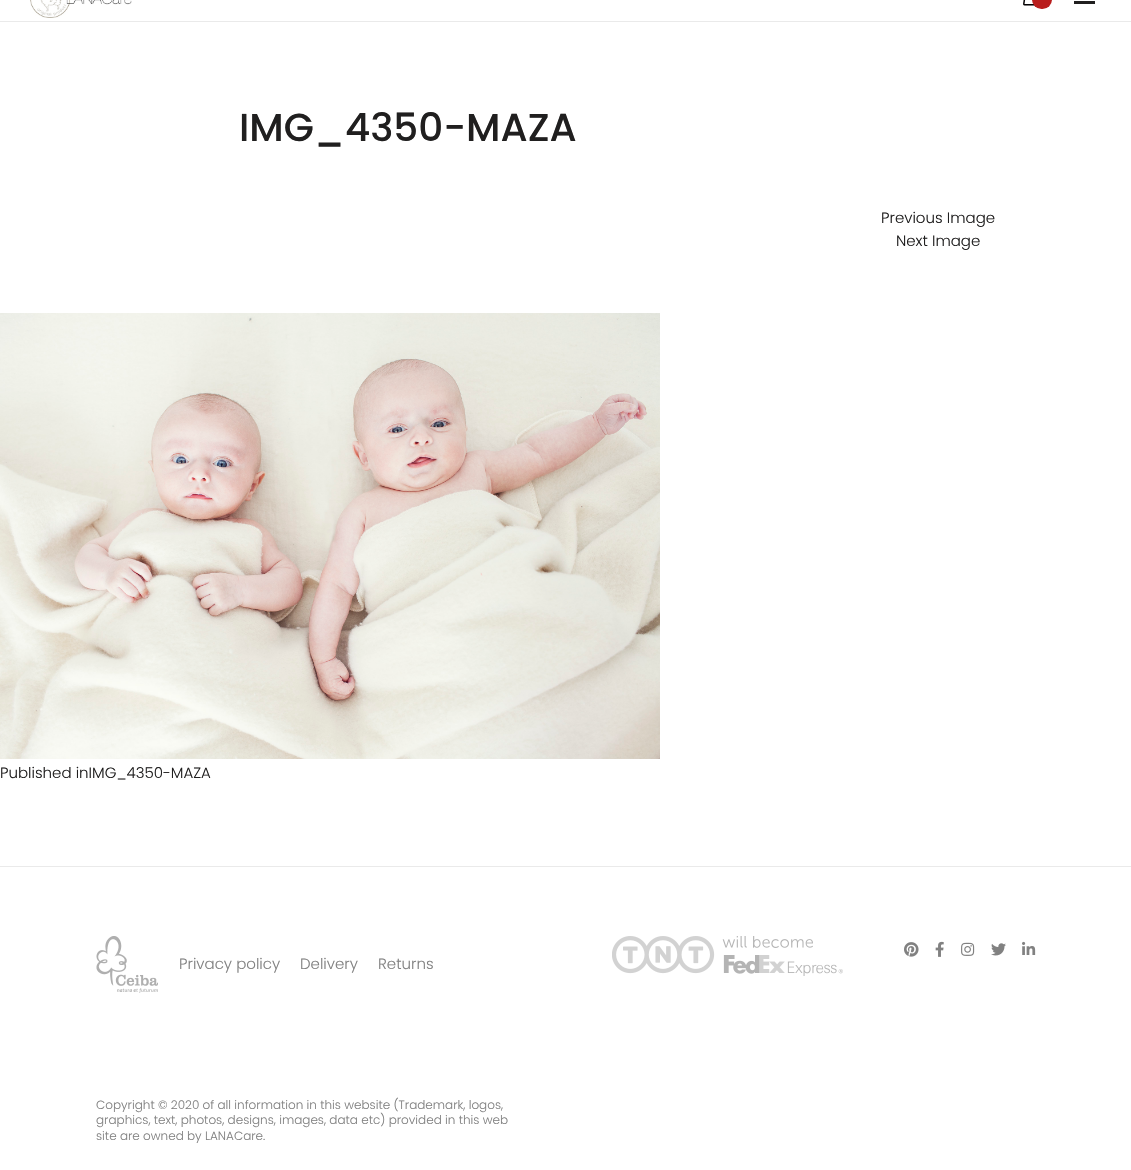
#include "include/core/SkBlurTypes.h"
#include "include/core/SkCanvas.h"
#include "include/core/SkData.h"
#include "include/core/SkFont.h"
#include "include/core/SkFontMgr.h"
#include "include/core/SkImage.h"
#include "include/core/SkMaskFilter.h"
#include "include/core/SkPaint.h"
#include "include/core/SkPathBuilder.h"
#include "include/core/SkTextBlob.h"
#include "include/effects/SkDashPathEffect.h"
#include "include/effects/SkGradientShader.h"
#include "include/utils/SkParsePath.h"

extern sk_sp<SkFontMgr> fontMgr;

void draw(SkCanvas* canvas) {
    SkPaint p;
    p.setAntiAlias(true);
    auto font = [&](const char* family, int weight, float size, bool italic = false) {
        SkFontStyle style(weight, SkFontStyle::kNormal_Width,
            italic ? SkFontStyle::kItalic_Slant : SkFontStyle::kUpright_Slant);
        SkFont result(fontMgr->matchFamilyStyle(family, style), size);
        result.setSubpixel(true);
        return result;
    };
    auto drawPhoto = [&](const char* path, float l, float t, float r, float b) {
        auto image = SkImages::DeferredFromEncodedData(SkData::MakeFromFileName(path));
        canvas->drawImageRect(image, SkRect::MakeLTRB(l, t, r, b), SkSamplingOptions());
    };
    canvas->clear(0xFFFFFFFF);
    p.setColor(0xFFEAEAEA);
    canvas->drawRect(SkRect::MakeLTRB(0, 21, 1131, 22), p);
    drawPhoto("media/1.png", 30, 0, 132, 18);
    drawPhoto("media/2.png", 1023, 0, 1035, 6);
    p.setColor(0xFFB91D1D);
    canvas->drawRoundRect(SkRect::MakeLTRB(1032, -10, 1052, 9), 10, 10, p);
    p.setColor(0xFF201F1F);
    canvas->drawRect(SkRect::MakeLTRB(1074, 1, 1095, 4), p);
    auto font1 = font("Poppins", 500, 39);
    canvas->drawString("IMG_4350-MAZA", 239, 141, font1, p);
    auto font2 = font("Poppins", 300, 15);
    canvas->drawString("Previous Image", 881, 223, font2, p);
    canvas->drawString("Next Image", 896, 246, font2, p);
    drawPhoto("media/3.png", 0, 313, 660, 759);
    canvas->drawString("Published inIMG_4350-MAZA", 0, 778, font2, p);
    p.setColor(0xFFEAEAEA);
    canvas->drawRect(SkRect::MakeLTRB(0, 866, 1131, 867), p);
    drawPhoto("media/4.png", 612, 936, 843, 976);
    drawPhoto("media/5.png", 904, 942, 919, 957);
    drawPhoto("media/6.png", 935, 941, 944, 957);
    drawPhoto("media/7.png", 961, 942, 975, 956);
    drawPhoto("media/8.png", 991, 943, 1006, 956);
    drawPhoto("media/9.png", 1022, 941, 1036, 955);
    drawPhoto("media/10.png", 96, 936, 158, 993);
    p.setColor(0xFF818181);
    {
        const struct { const char* s; float x, y; } items[] = {
            {"Privacy policy", 179, 969},
            {"Delivery", 300, 969},
            {"Returns", 378, 969},
        };
        for (auto [s, x, y] : items) {
            canvas->drawString(s, x, y, font2, p);
        }
    }
    auto font3 = font("Poppins", 300, 12);
    {
        const struct { const char* s; float x, y; } items[] = {
            {"Copyright © 2020 of all information in this website (Trademark, logos,", 96, 1109},
            {"graphics, text, photos, designs, images, data etc) provided in this web", 96, 1124},
            {"site are owned by LANACare.", 96, 1140},
        };
        for (auto [s, x, y] : items) {
            canvas->drawString(s, x, y, font3, p);
        }
    }
}
